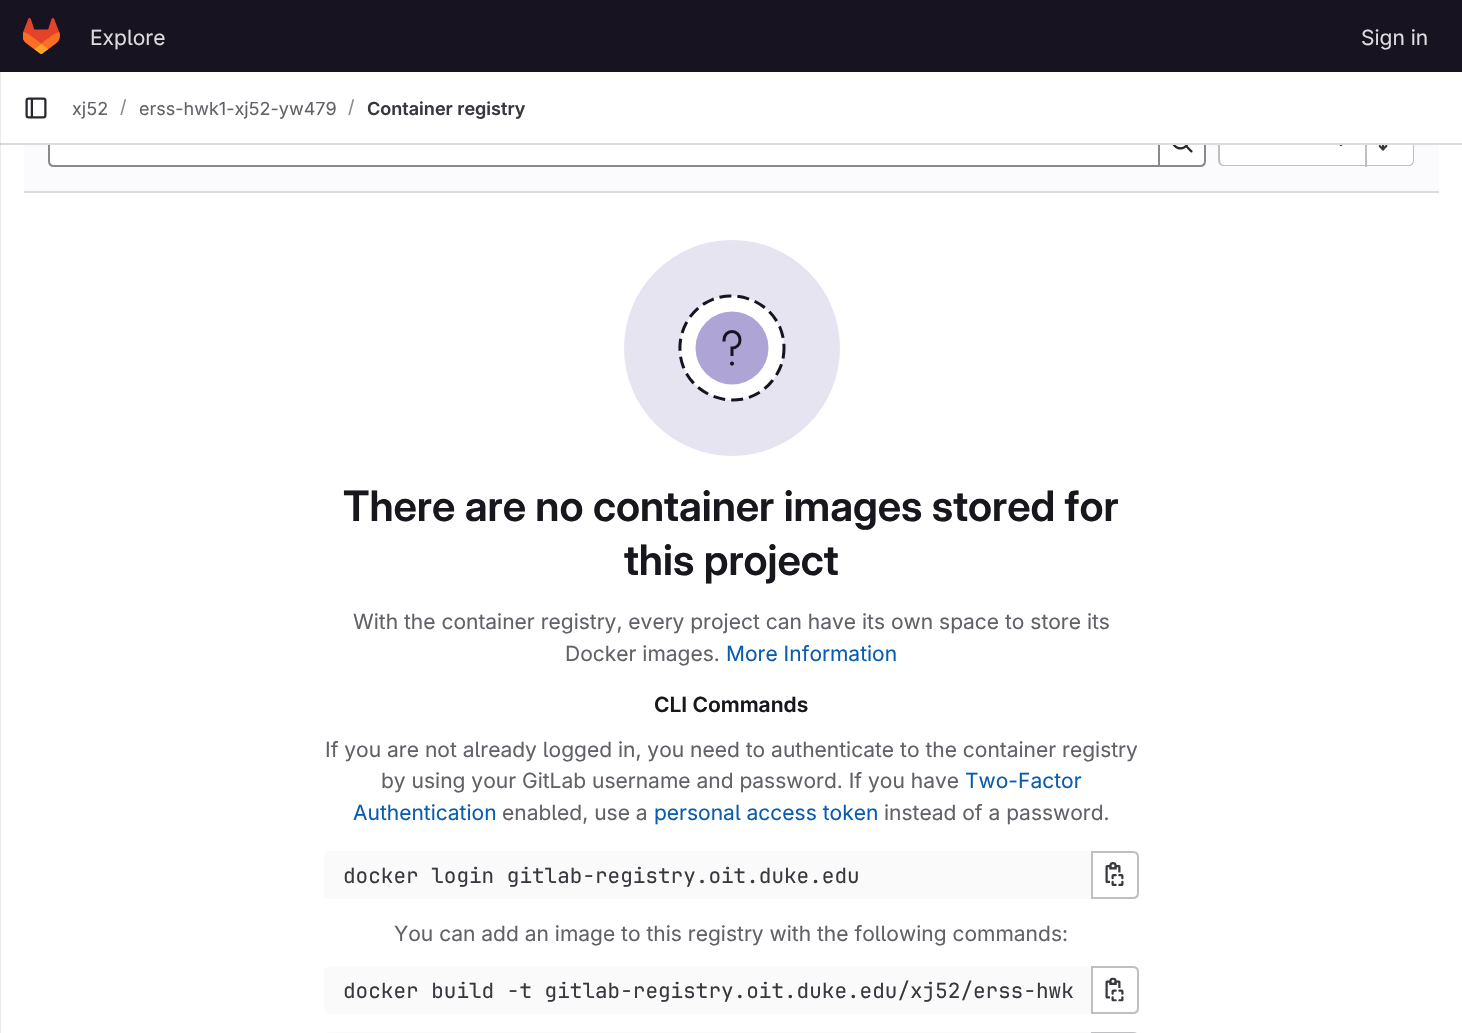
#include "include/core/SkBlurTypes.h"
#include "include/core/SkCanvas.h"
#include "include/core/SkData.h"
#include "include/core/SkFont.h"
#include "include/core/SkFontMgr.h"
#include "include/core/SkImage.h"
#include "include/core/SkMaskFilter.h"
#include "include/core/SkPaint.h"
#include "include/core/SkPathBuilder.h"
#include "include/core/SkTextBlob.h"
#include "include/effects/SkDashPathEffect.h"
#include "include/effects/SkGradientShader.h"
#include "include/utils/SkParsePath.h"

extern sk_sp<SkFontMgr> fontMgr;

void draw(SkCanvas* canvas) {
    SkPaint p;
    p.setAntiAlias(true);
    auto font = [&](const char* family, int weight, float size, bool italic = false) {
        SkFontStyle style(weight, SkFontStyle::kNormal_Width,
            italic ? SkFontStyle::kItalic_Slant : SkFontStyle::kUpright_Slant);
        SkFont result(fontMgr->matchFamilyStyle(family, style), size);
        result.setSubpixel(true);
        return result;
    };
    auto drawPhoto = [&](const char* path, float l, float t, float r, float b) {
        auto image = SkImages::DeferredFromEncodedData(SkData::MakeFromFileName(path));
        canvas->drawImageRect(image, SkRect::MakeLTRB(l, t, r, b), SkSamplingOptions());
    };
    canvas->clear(0xFFFFFFFF);
    p.setColor(0xFFEBEBEB);
    canvas->drawRect(SkRect::MakeLTRB(0, 145, 1, 1033), p);
    p.setColor(0xFF171321);
    canvas->drawRect(SkRect::MakeLTRB(0, 0, 1462, 72), p);
    drawPhoto("media/1.png", 23, 18, 60, 54);
    auto font1 = font("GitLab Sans", 400, 21);
    p.setColor(0xFFDCDCDE);
    canvas->drawString("Explore", 90, 45, font1, p);
    canvas->drawString("Sign in", 1361, 45, font1, p);
    p.setColor(0xFFFBFAFD);
    canvas->drawRect(SkRect::MakeLTRB(24, 145, 1439, 191), p);
    p.setColor(0xFFFFFFFF);
    canvas->drawPath(SkPathBuilder().moveTo(54, 120).lineTo(1159, 120).lineTo(1159, 166).lineTo(54, 166).cubicTo(51, 166, 49, 164, 49, 161).lineTo(49, 125).cubicTo(49, 122, 51, 120, 54, 120).close().detach(), p);
    p.setStyle(SkPaint::kStroke_Style);
    p.setStrokeWidth(2);
    p.setColor(0xFF89888D);
    canvas->drawPath(SkPathBuilder().moveTo(54, 120).lineTo(1159, 120).lineTo(1159, 166).lineTo(54, 166).cubicTo(51, 166, 49, 164, 49, 161).lineTo(49, 125).cubicTo(49, 122, 51, 120, 54, 120).close().detach(), p);
    p.setStyle(SkPaint::kFill_Style);
    p.setColor(0xFFFFFFFF);
    canvas->drawPath(SkPathBuilder().moveTo(1159, 120).lineTo(1200, 120).cubicTo(1203, 120, 1205, 122, 1205, 125).lineTo(1205, 161).cubicTo(1205, 164, 1203, 166, 1200, 166).lineTo(1159, 166).close().detach(), p);
    p.setStyle(SkPaint::kStroke_Style);
    p.setColor(0xFF89888D);
    canvas->drawPath(SkPathBuilder().moveTo(1159, 120).lineTo(1200, 120).cubicTo(1203, 120, 1205, 122, 1205, 125).lineTo(1205, 161).cubicTo(1205, 164, 1203, 166, 1200, 166).lineTo(1159, 166).close().detach(), p);
    p.setStyle(SkPaint::kFill_Style);
    p.setColor(0xFFFFFFFF);
    canvas->drawPath(SkPathBuilder().moveTo(1225, 120).lineTo(1365, 120).lineTo(1365, 165).lineTo(1225, 165).cubicTo(1222, 165, 1220, 163, 1220, 160).lineTo(1220, 125).cubicTo(1220, 122, 1222, 120, 1225, 120).close().detach(), p);
    p.setColor(0xFFBFBFC3);
    canvas->drawPath(SkPathBuilder(SkPathFillType::kEvenOdd).moveTo(1224, 118).lineTo(1365, 118).lineTo(1365, 166).lineTo(1224, 166).cubicTo(1221, 166, 1218, 164, 1218, 160).lineTo(1218, 124).cubicTo(1218, 121, 1221, 118, 1224, 118).close().moveTo(1224, 120).lineTo(1365, 120).lineTo(1365, 165).lineTo(1224, 165).cubicTo(1222, 165, 1220, 163, 1220, 160).lineTo(1220, 124).cubicTo(1220, 122, 1222, 120, 1224, 120).close().detach(), p);
    p.setColor(0xFFFFFFFF);
    canvas->drawPath(SkPathBuilder().moveTo(1367, 120).lineTo(1408, 120).cubicTo(1411, 120, 1413, 122, 1413, 125).lineTo(1413, 160).cubicTo(1413, 163, 1411, 165, 1408, 165).lineTo(1367, 165).close().detach(), p);
    p.setColor(0xFFBFBFC3);
    canvas->drawPath(SkPathBuilder(SkPathFillType::kEvenOdd).moveTo(1366, 118).lineTo(1408, 118).cubicTo(1412, 118, 1414, 121, 1414, 124).lineTo(1414, 160).cubicTo(1414, 164, 1412, 166, 1408, 166).lineTo(1366, 166).close().moveTo(1366, 120).lineTo(1408, 120).cubicTo(1411, 120, 1413, 122, 1413, 124).lineTo(1413, 160).cubicTo(1413, 163, 1411, 165, 1408, 165).lineTo(1366, 165).close().detach(), p);
    {
        const struct { float l, t, r, b; SkColor color; } items[] = {
            {48, 118, 1414, 143, 0xFFFFFFFF},
            {0, 72, 1, 144, 0xFFEBEBEB},
            {0, 143, 1462, 145, 0xFFDCDCDE},
            {0, 143, 1, 145, 0xFFCBCBCD},
        };
        for (auto [l, t, r, b, color] : items) {
            p.setColor(color);
            canvas->drawRect(SkRect::MakeLTRB(l, t, r, b), p);
        }
    }
    drawPhoto("media/2.png", 25, 97, 47, 119);
    auto font2 = font("GitLab Sans", 400, 18);
    p.setColor(0xFF626168);
    canvas->drawString("xj52", 72, 115, font2, p);
    p.setColor(0xFF89888D);
    canvas->drawString("/", 120, 113, font2, p);
    p.setColor(0xFF626168);
    canvas->drawString("erss-hwk1-xj52-yw479", 139, 115, font2, p);
    p.setColor(0xFF89888D);
    canvas->drawString("/", 348, 113, font2, p);
    auto font3 = font("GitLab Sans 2", 600, 18);
    p.setColor(0xFF3A383F);
    canvas->drawString("Container registry", 367, 115, font3, p);
    p.setColor(0xFFDCDCDE);
    canvas->drawRect(SkRect::MakeLTRB(24, 191, 1439, 193), p);
    drawPhoto("media/3.png", 1172, 145, 1193, 153);
    drawPhoto("media/4.png", 1339, 145, 1343, 147);
    p.setColor(0xFFBFBFC3);
    canvas->drawRect(SkRect::MakeLTRB(1365, 145, 1367, 167), p);
    drawPhoto("media/5.png", 1378, 145, 1388, 151);
    p.setColor(0xFFE7E4F2);
    canvas->drawCircle(732, 348, 108, p);
    p.setColor(0xFFFFFFFF);
    canvas->drawCircle(732, 348, 52, p);
    p.setColor(0xFFAEA5D6);
    canvas->drawCircle(732, 348, 36.5f, p);
    p.setStyle(SkPaint::kStroke_Style);
    p.setStrokeWidth(3);
    p.setStrokeCap(SkPaint::kSquare_Cap);
    p.setColor(0xFF171321);
    canvas->drawPath(SkPathBuilder().moveTo(732, 354.5f).lineTo(732, 348).cubicTo(736.5f, 348, 740, 344.5f, 740, 340).cubicTo(740, 335, 736.5f, 331.5f, 732, 331.5f).cubicTo(727.5f, 331.5f, 724, 335, 724, 340).detach(), p);
    p.setStrokeWidth(2.1f);
    p.setStrokeCap(SkPaint::kButt_Cap);
    canvas->drawCircle(732, 363.6f, 1, p);
    p.setStrokeWidth(3);
    p.setStrokeCap(SkPaint::kSquare_Cap);
    p.setPathEffect(SkDashPathEffect::Make({{9, 9}}, 0));
    canvas->drawPath(SkPathBuilder().moveTo(784, 348).cubicTo(784, 358.5f, 781, 368.5f, 775, 377).cubicTo(745.5f, 421, 677.5f, 397, 680, 345.5f).cubicTo(680.5f, 335, 684, 325.5f, 690, 317).cubicTo(719.5f, 277, 784, 298, 784, 348).close().detach(), p);
    p.setPathEffect(nullptr);
    auto font4 = font("GitLab Sans", 600, 42);
    p.setStyle(SkPaint::kFill_Style);
    p.setColor(0xFF18171D);
    canvas->drawString("There are no container images stored for", 343, 521, font4, p);
    canvas->drawString("this project", 624, 575, font4, p);
    p.setColor(0xFF626168);
    canvas->drawString("With the container registry, every project can have its own space to store its", 353, 629, font1, p);
    canvas->drawString("Docker images.", 565, 661, font1, p);
    p.setColor(0xFF0B5CAD);
    canvas->drawString("More Information", 726, 661, font1, p);
    auto font5 = font("GitLab Sans 2", 600, 21);
    p.setColor(0xFF18171D);
    canvas->drawString("CLI Commands", 654, 712, font5, p);
    p.setColor(0xFF626168);
    canvas->drawString("If you are not already logged in, you need to authenticate to the container registry", 325, 757, font1, p);
    canvas->drawString("by using your GitLab username and password. If you have", 381, 788, font1, p);
    p.setColor(0xFF0B5CAD);
    canvas->drawString("Two-Factor", 965, 788, font1, p);
    canvas->drawString("Authentication", 353, 820, font1, p);
    p.setColor(0xFF626168);
    canvas->drawString("enabled, use a", 502, 820, font1, p);
    p.setColor(0xFF0B5CAD);
    canvas->drawString("personal access token", 654, 820, font1, p);
    p.setColor(0xFF626168);
    canvas->drawString("instead of a password.", 884, 820, font1, p);
    p.setColor(0xFFFAFAFA);
    canvas->drawPath(SkPathBuilder().moveTo(330, 851).lineTo(1092, 851).lineTo(1092, 899).lineTo(330, 899).cubicTo(326.5f, 899, 324, 896.5f, 324, 893).lineTo(324, 857).cubicTo(324, 853.5f, 326.5f, 851, 330, 851).close().detach(), p);
    auto font6 = font("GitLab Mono", 400, 21);
    p.setColor(0xFF3A383F);
    canvas->drawString("docker login gitlab-registry.oit.duke.edu", 343, 883, font6, p);
    p.setColor(0xFFFFFFFF);
    canvas->drawPath(SkPathBuilder().moveTo(1092, 852).lineTo(1133, 852).cubicTo(1136, 852, 1138, 854, 1138, 857).lineTo(1138, 893).cubicTo(1138, 896, 1136, 898, 1133, 898).lineTo(1092, 898).close().detach(), p);
    p.setStyle(SkPaint::kStroke_Style);
    p.setStrokeWidth(2);
    p.setStrokeCap(SkPaint::kButt_Cap);
    p.setColor(0xFFBFBFC3);
    canvas->drawPath(SkPathBuilder().moveTo(1092, 852).lineTo(1133, 852).cubicTo(1136, 852, 1138, 854, 1138, 857).lineTo(1138, 893).cubicTo(1138, 896, 1136, 898, 1133, 898).lineTo(1092, 898).close().detach(), p);
    drawPhoto("media/6.png", 1105, 862, 1124, 886);
    p.setStyle(SkPaint::kFill_Style);
    p.setColor(0xFF626168);
    canvas->drawString("You can add an image to this registry with the following commands:", 394, 941, font1, p);
    p.setColor(0xFFFAFAFA);
    canvas->drawPath(SkPathBuilder().moveTo(330, 966).lineTo(1092, 966).lineTo(1092, 1014).lineTo(330, 1014).cubicTo(326.5f, 1014, 324, 1011.5f, 324, 1008).lineTo(324, 972).cubicTo(324, 968.5f, 326.5f, 966, 330, 966).close().detach(), p);
    p.setColor(0xFF3A383F);
    canvas->drawString("docker build -t gitlab-registry.oit.duke.edu/xj52/erss-hwk", 343, 998, font6, p);
    p.setColor(0xFFFFFFFF);
    canvas->drawPath(SkPathBuilder().moveTo(1092, 967).lineTo(1133, 967).cubicTo(1136, 967, 1138, 969, 1138, 972).lineTo(1138, 1008).cubicTo(1138, 1011, 1136, 1013, 1133, 1013).lineTo(1092, 1013).close().detach(), p);
    p.setStyle(SkPaint::kStroke_Style);
    p.setColor(0xFFBFBFC3);
    canvas->drawPath(SkPathBuilder().moveTo(1092, 967).lineTo(1133, 967).cubicTo(1136, 967, 1138, 969, 1138, 972).lineTo(1138, 1008).cubicTo(1138, 1011, 1136, 1013, 1133, 1013).lineTo(1092, 1013).close().detach(), p);
    drawPhoto("media/7.png", 1105, 977, 1124, 1002);
    p.setStyle(SkPaint::kFill_Style);
    p.setColor(0xFFFAFAFA);
    canvas->drawPath(SkPathBuilder().moveTo(330, 1032).lineTo(1092, 1032).lineTo(1092, 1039).lineTo(330, 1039).cubicTo(326.5f, 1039, 324, 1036.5f, 324, 1033).lineTo(324, 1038).cubicTo(324, 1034.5f, 326.5f, 1032, 330, 1032).close().detach(), p);
    p.setStyle(SkPaint::kStroke_Style);
    p.setColor(0xFFBFBFC3);
    canvas->drawPath(SkPathBuilder().moveTo(1092, 1033).lineTo(1133, 1033).cubicTo(1136, 1033, 1138, 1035, 1138, 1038).lineTo(1138, 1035).cubicTo(1138, 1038, 1136, 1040, 1133, 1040).lineTo(1092, 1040).close().detach(), p);
}
